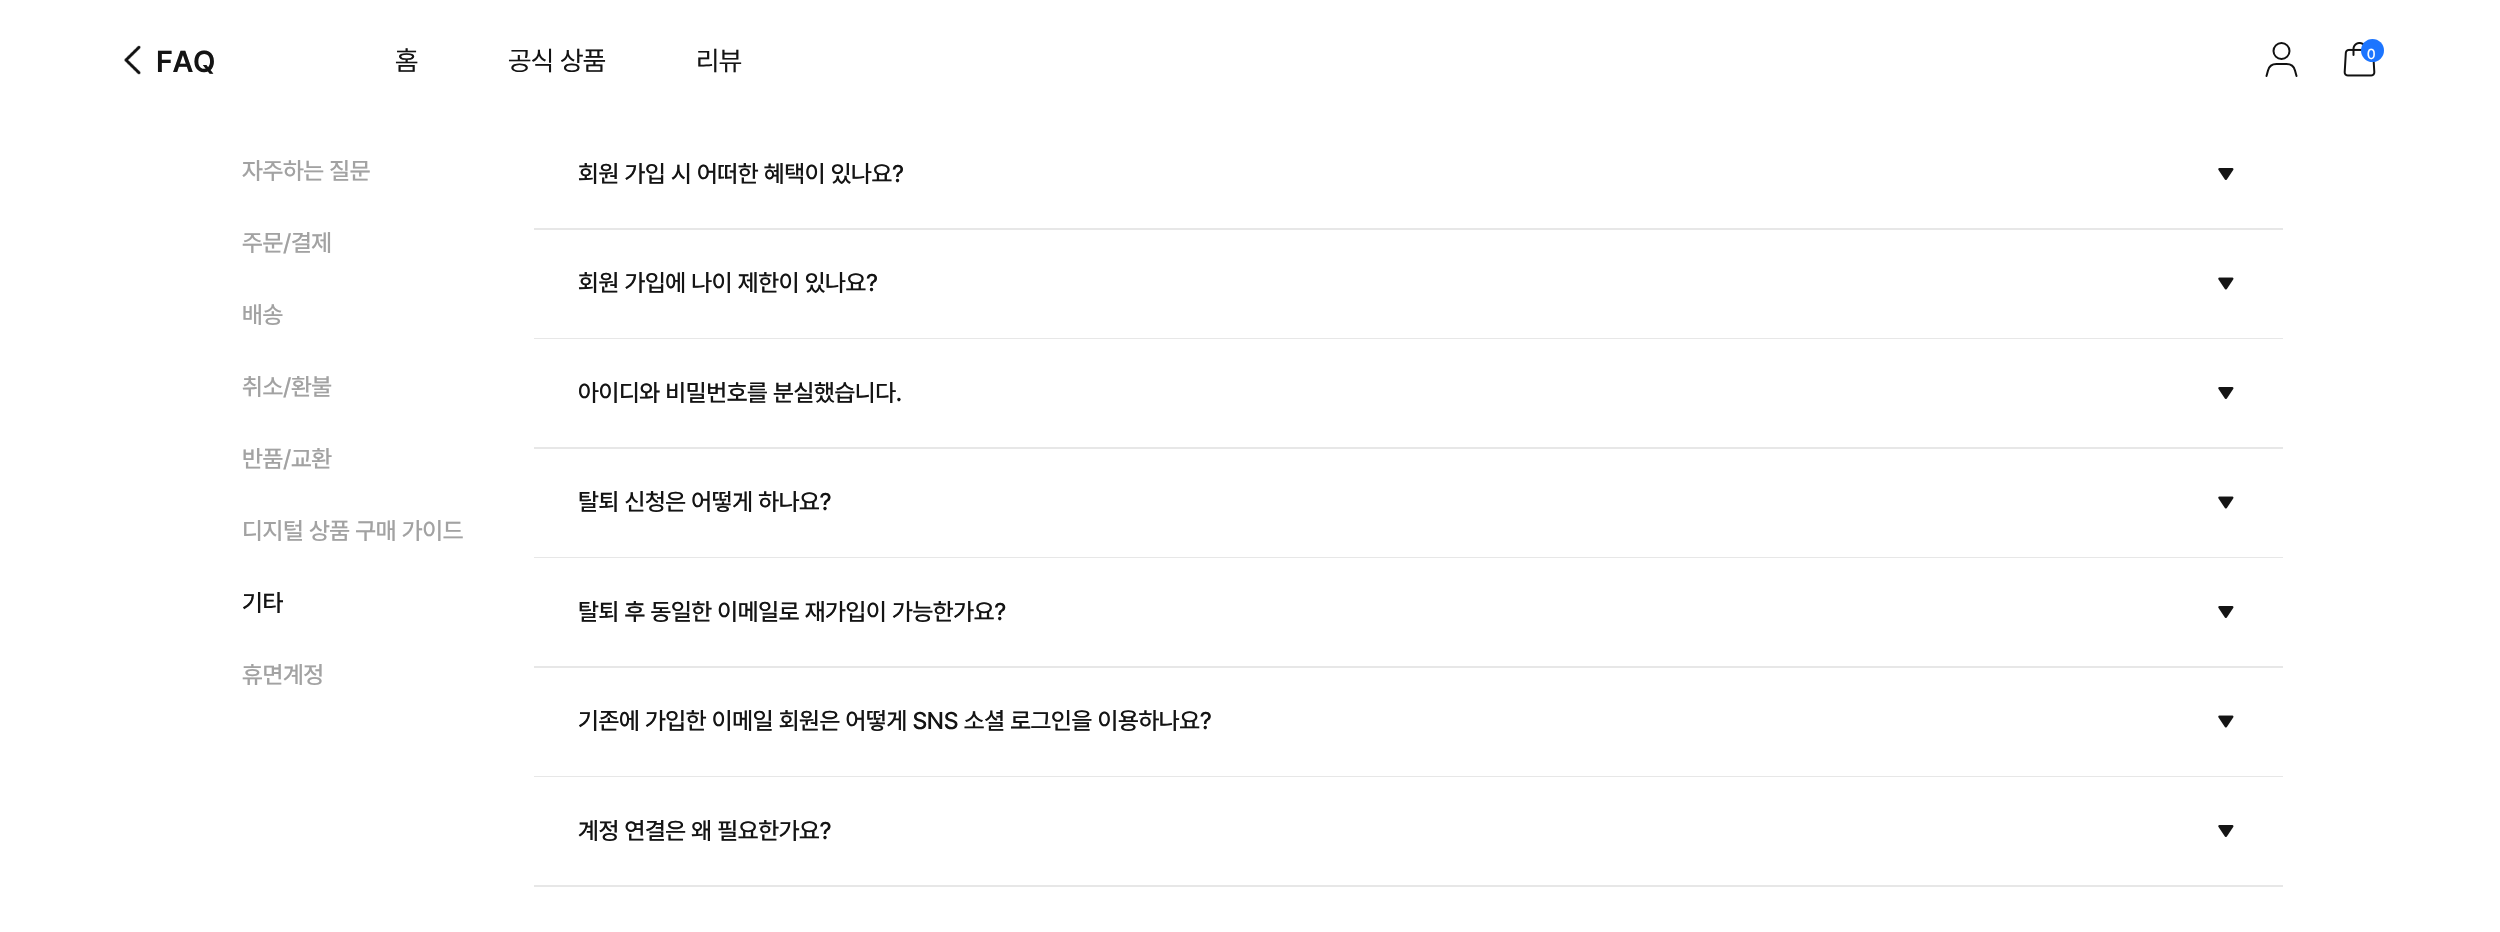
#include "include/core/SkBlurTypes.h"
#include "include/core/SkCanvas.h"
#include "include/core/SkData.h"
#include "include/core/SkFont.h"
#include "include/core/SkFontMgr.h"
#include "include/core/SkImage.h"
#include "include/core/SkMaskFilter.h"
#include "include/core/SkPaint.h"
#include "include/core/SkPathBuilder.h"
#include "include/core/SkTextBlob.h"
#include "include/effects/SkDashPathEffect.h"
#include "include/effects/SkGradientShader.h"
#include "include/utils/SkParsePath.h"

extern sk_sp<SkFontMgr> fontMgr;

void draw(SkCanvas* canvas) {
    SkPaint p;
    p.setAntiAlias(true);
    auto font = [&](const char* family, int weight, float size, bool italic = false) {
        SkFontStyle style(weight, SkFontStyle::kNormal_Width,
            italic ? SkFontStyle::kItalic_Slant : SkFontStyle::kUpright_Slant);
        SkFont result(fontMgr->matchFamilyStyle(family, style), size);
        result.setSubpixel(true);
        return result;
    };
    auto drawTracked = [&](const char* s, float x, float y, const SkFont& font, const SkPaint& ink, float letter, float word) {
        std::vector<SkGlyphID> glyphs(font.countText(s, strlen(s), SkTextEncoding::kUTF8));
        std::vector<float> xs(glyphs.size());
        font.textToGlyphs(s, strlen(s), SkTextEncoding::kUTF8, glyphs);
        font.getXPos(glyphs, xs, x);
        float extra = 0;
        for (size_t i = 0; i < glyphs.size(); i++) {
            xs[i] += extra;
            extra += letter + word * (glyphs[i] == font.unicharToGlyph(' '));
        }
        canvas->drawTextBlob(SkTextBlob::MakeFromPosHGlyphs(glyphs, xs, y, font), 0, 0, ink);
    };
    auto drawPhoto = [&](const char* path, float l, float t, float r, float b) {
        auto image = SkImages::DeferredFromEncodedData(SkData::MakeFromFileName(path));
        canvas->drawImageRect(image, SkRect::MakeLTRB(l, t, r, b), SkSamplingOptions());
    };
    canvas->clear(0xFFFFFFFF);
    drawPhoto("media/1.png", 124, 45, 141, 75);
    auto font1 = font("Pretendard", 600, 30);
    p.setColor(0xFF141414);
    drawTracked("FAQ", 156, 72, font1, p, -0.3f, 0);
    auto font2 = font("Pretendard", 400, 27);
    {
        const struct { const char* s; float x, y; } items[] = {
            {"홈", 395, 70},
            {"공식 상품", 508, 70},
            {"리뷰", 696, 70},
        };
        for (auto [s, x, y] : items) {
            drawTracked(s, x, y, font2, p, -0.5f, 0);
        }
    }
    p.setStyle(SkPaint::kStroke_Style);
    p.setStrokeWidth(2);
    p.setColor(0xFF111111);
    canvas->drawCircle(2281.5f, 51, 8, p);
    p.setStrokeCap(SkPaint::kRound_Cap);
    canvas->drawPath(SkPathBuilder().moveTo(2296.5f, 76).lineTo(2295, 70.5f).cubicTo(2294, 66.5f, 2290.5f, 64, 2286.5f, 64).lineTo(2276.5f, 64).cubicTo(2272.5f, 64, 2269, 66.5f, 2268, 70.5f).lineTo(2266.5f, 76).detach(), p);
    drawPhoto("media/2.png", 2343, 42, 2376, 77);
    p.setStyle(SkPaint::kFill_Style);
    p.setColor(0xFF1C75FF);
    canvas->drawCircle(2372.5f, 50.5f, 11.5f, p);
    auto font3 = font("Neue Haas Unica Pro", 400, 15);
    p.setColor(0xFFFFFFFF);
    drawTracked("0", 2367, 59, font3, p, -0.5f, 0);
    auto font4 = font("Pretendard", 500, 24);
    p.setColor(0xFFA2A2A2);
    {
        const struct { const char* s; float x, y; } items[] = {
            {"자주하는 질문", 242, 179},
            {"주문/결제", 242, 251},
            {"배송", 242, 323},
            {"취소/환불", 242, 395},
            {"반품/교환", 242, 467},
            {"디지털 상품 구매 가이드", 242, 539},
        };
        for (auto [s, x, y] : items) {
            drawTracked(s, x, y, font4, p, -0.3f, 0);
        }
    }
    p.setColor(0xFF141414);
    drawTracked("기타", 242, 611, font4, p, -0.3f, 0);
    p.setColor(0xFFA2A2A2);
    drawTracked("휴면계정", 242, 683, font4, p, -0.3f, 0);
    p.setColor(0xFFE7E7E7);
    canvas->drawRect(SkRect::MakeLTRB(534, 228, 2283, 230), p);
    p.setColor(0xFF141414);
    drawTracked("회원 가입 시 어떠한 혜택이 있나요?", 578, 182, font4, p, -0.3f, 0);
    drawPhoto("media/3.png", 2218, 168, 2234, 180);
    p.setColor(0xFFE7E7E7);
    canvas->drawRect(SkRect::MakeLTRB(534, 338, 2283, 339), p);
    p.setColor(0xFF141414);
    drawTracked("회원 가입에 나이 제한이 있나요?", 578, 291, font4, p, -0.3f, 0);
    drawPhoto("media/4.png", 2218, 277, 2234, 290);
    p.setColor(0xFFE7E7E7);
    canvas->drawRect(SkRect::MakeLTRB(534, 447, 2283, 449), p);
    p.setColor(0xFF141414);
    drawTracked("아이디와 비밀번호를 분실했습니다.", 578, 401, font4, p, -0.3f, 0);
    drawPhoto("media/3.png", 2218, 387, 2234, 399);
    p.setColor(0xFFE7E7E7);
    canvas->drawRect(SkRect::MakeLTRB(534, 557, 2283, 558), p);
    p.setColor(0xFF141414);
    drawTracked("탈퇴 신청은 어떻게 하나요?", 578, 510, font4, p, -0.3f, 0);
    drawPhoto("media/4.png", 2218, 496, 2234, 509);
    p.setColor(0xFFE7E7E7);
    canvas->drawRect(SkRect::MakeLTRB(534, 666, 2283, 668), p);
    p.setColor(0xFF141414);
    drawTracked("탈퇴 후 동일한 이메일로 재가입이 가능한가요?", 578, 620, font4, p, -0.3f, 0);
    drawPhoto("media/3.png", 2218, 606, 2234, 618);
    p.setColor(0xFFE7E7E7);
    canvas->drawRect(SkRect::MakeLTRB(534, 776, 2283, 777), p);
    p.setColor(0xFF141414);
    drawTracked("기존에 가입한 이메일 회원은 어떻게 SNS 소셜 로그인을 이용하나요?", 578, 729, font4, p, -0.3f, 0);
    drawPhoto("media/4.png", 2218, 715, 2234, 728);
    p.setColor(0xFFE7E7E7);
    canvas->drawRect(SkRect::MakeLTRB(534, 885, 2283, 887), p);
    p.setColor(0xFF141414);
    drawTracked("계정 연결은 왜 필요한가요?", 578, 839, font4, p, -0.3f, 0);
    drawPhoto("media/3.png", 2218, 825, 2234, 837);
}
